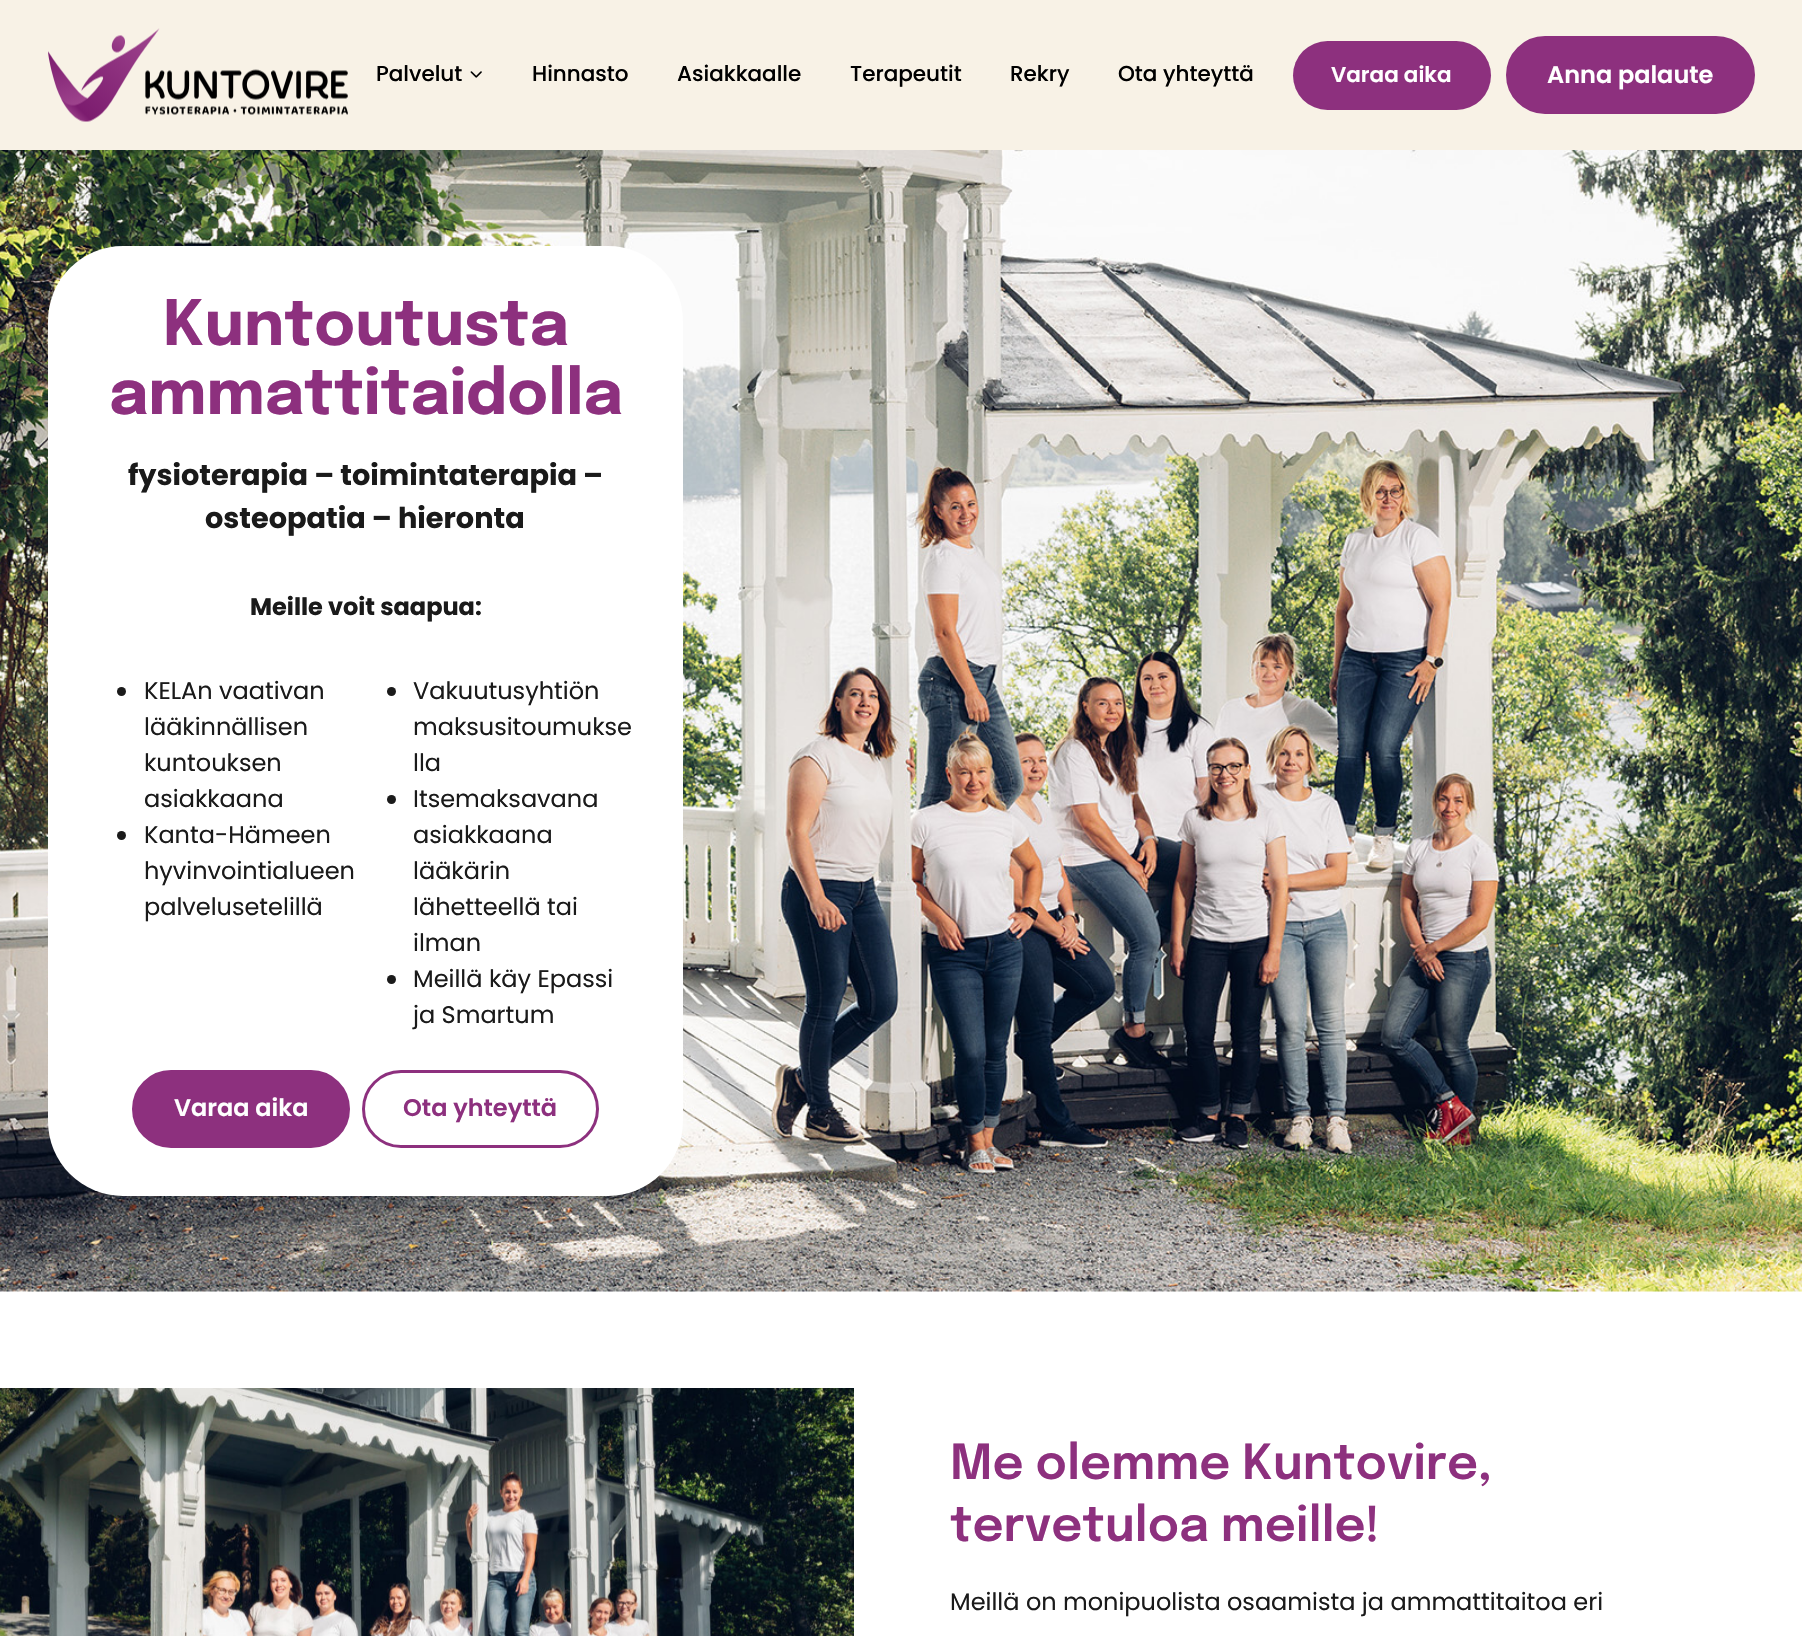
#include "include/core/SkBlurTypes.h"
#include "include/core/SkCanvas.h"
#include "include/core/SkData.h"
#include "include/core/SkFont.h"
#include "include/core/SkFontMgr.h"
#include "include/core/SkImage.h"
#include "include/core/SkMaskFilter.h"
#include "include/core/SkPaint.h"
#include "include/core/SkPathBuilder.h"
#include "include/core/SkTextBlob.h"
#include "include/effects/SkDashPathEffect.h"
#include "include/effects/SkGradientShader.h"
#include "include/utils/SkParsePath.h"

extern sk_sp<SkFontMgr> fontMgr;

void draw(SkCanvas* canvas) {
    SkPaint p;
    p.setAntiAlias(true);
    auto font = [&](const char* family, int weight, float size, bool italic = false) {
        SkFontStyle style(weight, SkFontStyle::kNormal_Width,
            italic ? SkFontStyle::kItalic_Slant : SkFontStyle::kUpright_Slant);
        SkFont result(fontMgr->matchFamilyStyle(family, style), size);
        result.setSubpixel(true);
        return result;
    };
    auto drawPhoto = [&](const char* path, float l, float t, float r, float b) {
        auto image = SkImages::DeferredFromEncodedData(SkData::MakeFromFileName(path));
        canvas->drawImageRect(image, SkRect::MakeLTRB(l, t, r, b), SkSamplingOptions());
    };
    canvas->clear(0xFFFFFFFF);
    p.setColor(0xFFF8F2E6);
    canvas->drawRect(SkRect::MakeLTRB(0, 0, 1802, 150), p);
    drawPhoto("media/1.png", 48, 28, 348, 122);
    auto font1 = font("Poppins", 500, 21.5f);
    p.setColor(0xFF000000);
    canvas->drawString("Palvelut", 376, 81, font1, p);
    drawPhoto("media/2.png", 470, 71, 482, 78);
    {
        const struct { const char* s; float x, y; } items[] = {
            {"Hinnasto", 532, 81},
            {"Asiakkaalle", 677, 81},
            {"Terapeutit", 850, 81},
            {"Rekry", 1010, 81},
            {"Ota yhteyttä", 1118, 81},
        };
        for (auto [s, x, y] : items) {
            canvas->drawString(s, x, y, font1, p);
        }
    }
    p.setColor(0xFF8D307E);
    canvas->drawRoundRect(SkRect::MakeLTRB(1293, 41, 1491, 110), 34.5f, 34.5f, p);
    auto font2 = font("Poppins", 600, 21.5f);
    p.setColor(0xFFFFFFFF);
    canvas->drawString("Varaa aika", 1331, 82, font2, p);
    p.setColor(0xFF8D307E);
    canvas->drawRoundRect(SkRect::MakeLTRB(1507.5f, 37.5f, 1753.5f, 112.5f), 37.5f, 37.5f, p);
    p.setStyle(SkPaint::kStroke_Style);
    p.setStrokeWidth(3);
    canvas->drawRoundRect(SkRect::MakeLTRB(1507.5f, 37.5f, 1753.5f, 112.5f), 37.5f, 37.5f, p);
    auto font3 = font("Poppins", 600, 24);
    p.setStyle(SkPaint::kFill_Style);
    p.setColor(0xFFFFFFFF);
    canvas->drawString("Anna palaute", 1547, 83, font3, p);
    drawPhoto("media/3.png", 0, 150, 1802, 1292);
    canvas->drawRoundRect(SkRect::MakeLTRB(48, 246, 683, 1196), 75, 75, p);
    auto font4 = font("Epilogue", 700, 62.5f);
    p.setColor(0xFF8D307E);
    canvas->drawString("Kuntoutusta", 163, 345, font4, p);
    canvas->drawString("ammattitaidolla", 109, 414, font4, p);
    auto font5 = font("Poppins", 700, 28.75f);
    p.setColor(0xFF1A1A1A);
    canvas->drawString("fysioterapia – toimintaterapia –", 128, 485, font5, p);
    canvas->drawString("osteopatia – hieronta", 205, 528, font5, p);
    auto font6 = font("Poppins", 700, 24);
    canvas->drawString("Meille voit saapua:", 250, 615, font6, p);
    canvas->drawCircle(121.5f, 691.5f, 4.5f, p);
    auto font7 = font("Poppins", 400, 24);
    {
        const struct { const char* s; float x, y; } items[] = {
            {"KELAn vaativan", 144, 699},
            {"lääkinnällisen", 144, 735},
            {"kuntouksen", 144, 771},
            {"asiakkaana", 144, 807},
        };
        for (auto [s, x, y] : items) {
            canvas->drawString(s, x, y, font7, p);
        }
    }
    canvas->drawCircle(121.5f, 835.5f, 4.5f, p);
    {
        const struct { const char* s; float x, y; } items[] = {
            {"Kanta-Hämeen", 144, 843},
            {"hyvinvointialueen", 144, 879},
            {"palvelusetelillä", 144, 915},
        };
        for (auto [s, x, y] : items) {
            canvas->drawString(s, x, y, font7, p);
        }
    }
    canvas->drawCircle(391.5f, 691.5f, 4.5f, p);
    {
        const struct { const char* s; float x, y; } items[] = {
            {"Vakuutusyhtiön", 413, 699},
            {"maksusitoumukse", 413, 735},
            {"lla", 413, 771},
        };
        for (auto [s, x, y] : items) {
            canvas->drawString(s, x, y, font7, p);
        }
    }
    canvas->drawCircle(391.5f, 799.5f, 4.5f, p);
    {
        const struct { const char* s; float x, y; } items[] = {
            {"Itsemaksavana", 413, 807},
            {"asiakkaana", 413, 843},
            {"lääkärin", 413, 879},
            {"lähetteellä tai", 413, 915},
            {"ilman", 413, 951},
        };
        for (auto [s, x, y] : items) {
            canvas->drawString(s, x, y, font7, p);
        }
    }
    canvas->drawCircle(391.5f, 979.5f, 4.5f, p);
    canvas->drawString("Meillä käy Epassi", 413, 987, font7, p);
    canvas->drawString("ja Smartum", 413, 1023, font7, p);
    p.setColor(0xFF8D307E);
    canvas->drawRoundRect(SkRect::MakeLTRB(133.5f, 1071.5f, 348.5f, 1146.5f), 37.5f, 37.5f, p);
    p.setStyle(SkPaint::kStroke_Style);
    canvas->drawRoundRect(SkRect::MakeLTRB(133.5f, 1071.5f, 348.5f, 1146.5f), 37.5f, 37.5f, p);
    p.setStyle(SkPaint::kFill_Style);
    p.setColor(0xFFFFFFFF);
    canvas->drawString("Varaa aika", 174, 1116, font3, p);
    p.setStyle(SkPaint::kStroke_Style);
    p.setColor(0xFF8D307E);
    canvas->drawRoundRect(SkRect::MakeLTRB(363.5f, 1071.5f, 597.5f, 1146.5f), 37.5f, 37.5f, p);
    p.setStyle(SkPaint::kFill_Style);
    canvas->drawString("Ota yhteyttä", 403, 1116, font3, p);
    drawPhoto("media/4.png", 0, 1388, 854, 1636);
    auto font8 = font("Epilogue", 600, 48);
    canvas->drawString("Me olemme Kuntovire,", 950, 1479, font8, p);
    canvas->drawString("tervetuloa meille!", 950, 1541, font8, p);
    p.setColor(0xFF1A1A1A);
    canvas->drawString("Meillä on monipuolista osaamista ja ammattitaitoa eri", 950, 1610, font7, p);
}
